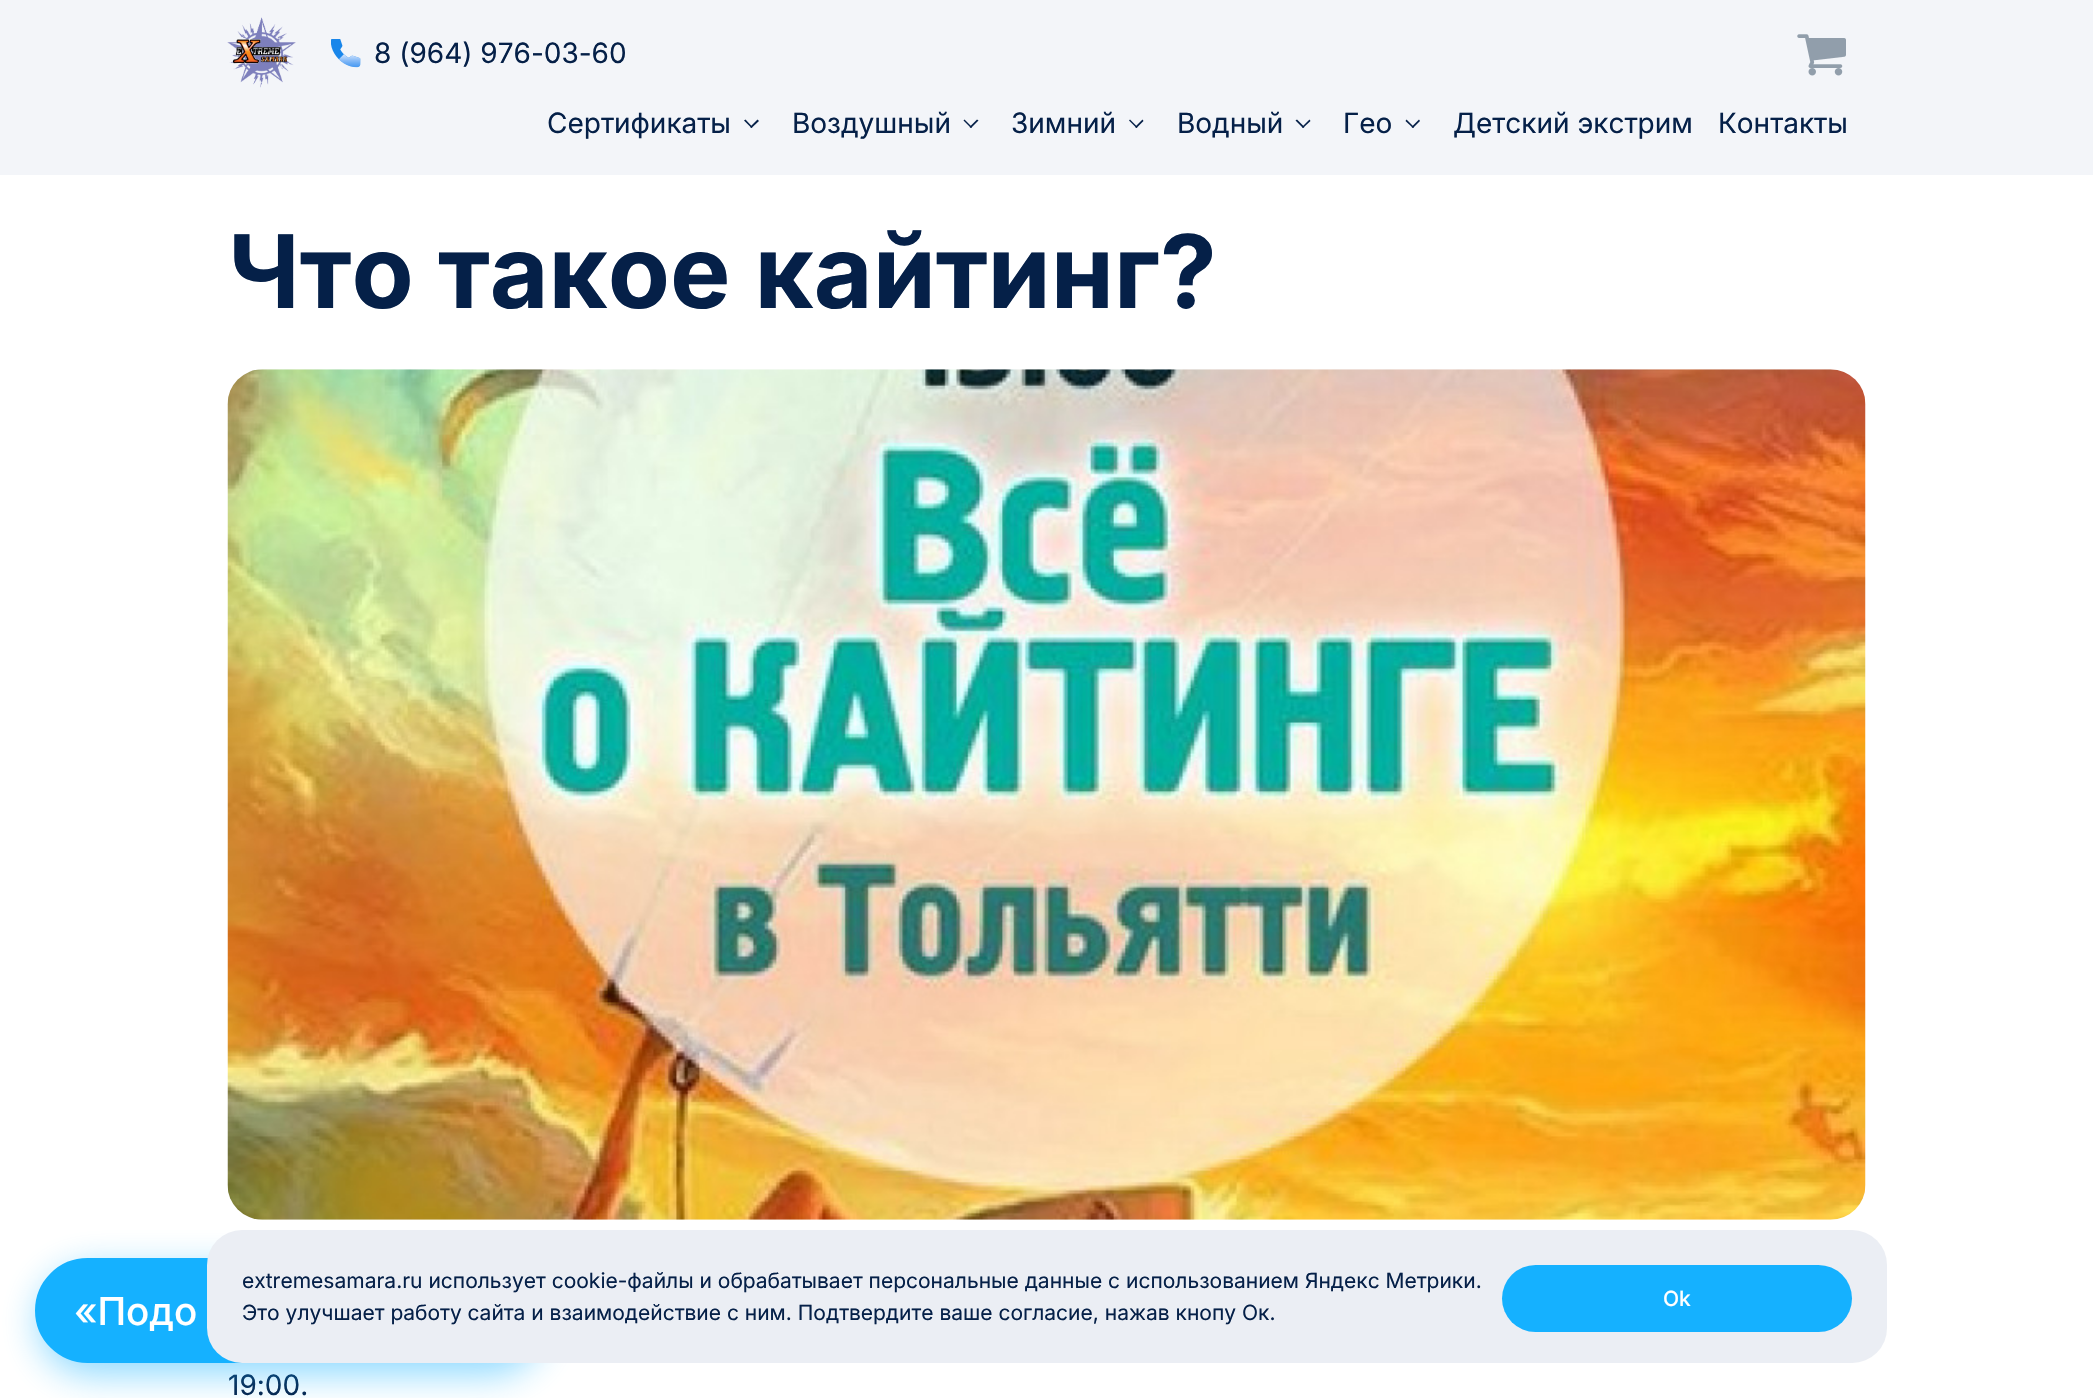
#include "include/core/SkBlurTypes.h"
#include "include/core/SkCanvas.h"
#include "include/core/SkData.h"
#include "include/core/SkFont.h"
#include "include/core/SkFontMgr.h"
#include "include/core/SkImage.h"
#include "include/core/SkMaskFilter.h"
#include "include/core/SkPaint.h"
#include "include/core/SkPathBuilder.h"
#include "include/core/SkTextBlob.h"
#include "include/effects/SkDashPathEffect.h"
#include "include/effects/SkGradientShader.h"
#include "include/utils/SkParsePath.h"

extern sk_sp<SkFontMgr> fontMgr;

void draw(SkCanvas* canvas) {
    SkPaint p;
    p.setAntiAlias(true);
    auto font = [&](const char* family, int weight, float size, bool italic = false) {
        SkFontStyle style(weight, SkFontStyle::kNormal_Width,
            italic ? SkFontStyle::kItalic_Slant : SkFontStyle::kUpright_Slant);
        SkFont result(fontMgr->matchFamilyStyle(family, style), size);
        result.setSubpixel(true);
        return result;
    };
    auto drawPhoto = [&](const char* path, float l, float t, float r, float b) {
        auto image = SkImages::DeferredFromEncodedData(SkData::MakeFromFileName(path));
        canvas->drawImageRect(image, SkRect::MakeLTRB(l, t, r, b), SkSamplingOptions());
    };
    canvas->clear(0xFFFFFFFF);
    p.setColor(0xFFF3F5F9);
    canvas->drawRect(SkRect::MakeLTRB(0, 0, 2093, 175), p);
    drawPhoto("media/1.png", 227, 17, 296, 88);
    drawPhoto("media/2.png", 331, 39, 361, 68);
    auto font1 = font("Inter", 400, 28);
    p.setColor(0xFF052048);
    canvas->drawString("8 (964) 976-03-60", 374, 63, font1, p);
    drawPhoto("media/3.png", 1797, 34, 1846, 76);
    canvas->drawString("Сертификаты", 547, 133, font1, p);
    canvas->drawPath(SkPathBuilder().moveTo(757.5f, 119.5f).lineTo(759, 121).lineTo(751.5f, 128).lineTo(750, 127).close().detach(), p);
    canvas->drawPath(SkPathBuilder().moveTo(745.5f, 119.5f).lineTo(752.5f, 127).lineTo(751.5f, 128).lineTo(744, 120.5f).close().detach(), p);
    canvas->drawString("Воздушный", 792, 133, font1, p);
    canvas->drawPath(SkPathBuilder().moveTo(977, 119.5f).lineTo(978.5f, 120.5f).lineTo(971, 128).lineTo(969.5f, 127).close().detach(), p);
    canvas->drawPath(SkPathBuilder().moveTo(964.5f, 119.5f).lineTo(972, 127).lineTo(971, 128).lineTo(963.5f, 120.5f).close().detach(), p);
    canvas->drawString("Зимний", 1011, 133, font1, p);
    canvas->drawPath(SkPathBuilder().moveTo(1142.5f, 119.5f).lineTo(1143.5f, 121).lineTo(1136.5f, 128).lineTo(1135, 127).close().detach(), p);
    canvas->drawPath(SkPathBuilder().moveTo(1130, 119.5f).lineTo(1137.5f, 127).lineTo(1136.5f, 128).lineTo(1129, 120.5f).close().detach(), p);
    canvas->drawString("Водный", 1177, 133, font1, p);
    canvas->drawPath(SkPathBuilder().moveTo(1309.5f, 119.5f).lineTo(1310.5f, 121).lineTo(1303, 128).lineTo(1302, 127).close().detach(), p);
    canvas->drawPath(SkPathBuilder().moveTo(1297, 119.5f).lineTo(1304.5f, 127).lineTo(1303, 128).lineTo(1295.5f, 120.5f).close().detach(), p);
    canvas->drawString("Гео", 1343, 133, font1, p);
    canvas->drawPath(SkPathBuilder().moveTo(1419, 119.5f).lineTo(1420, 121).lineTo(1413, 128).lineTo(1411.5f, 127).close().detach(), p);
    canvas->drawPath(SkPathBuilder().moveTo(1406.5f, 119.5f).lineTo(1414, 127).lineTo(1413, 128).lineTo(1405.5f, 121).close().detach(), p);
    canvas->drawString("Детский экстрим", 1453, 133, font1, p);
    canvas->drawString("Контакты", 1718, 133, font1, p);
    auto font2 = font("Inter", 700, 101.5f);
    canvas->drawString("Что такое кайтинг?", 228, 308, font2, p);
    drawPhoto("media/4.png", 227, 369, 1866, 1220);
    canvas->drawString("19:00.", 228, 1395, font1, p);
    p.setColor(0x8015B1FF);
    p.setMaskFilter(SkMaskFilter::MakeBlur(kNormal_SkBlurStyle, 18.5f));
    canvas->drawRoundRect(SkRect::MakeLTRB(39, 1269, 543, 1374), 52.5f, 52.5f, p);
    p.setMaskFilter(nullptr);
    p.setColor(0xFF15B1FF);
    canvas->drawRoundRect(SkRect::MakeLTRB(36, 1259, 538, 1362), 51.5f, 51.5f, p);
    p.setStyle(SkPaint::kStroke_Style);
    p.setStrokeWidth(2);
    canvas->drawRoundRect(SkRect::MakeLTRB(36, 1259, 538, 1362), 51.5f, 51.5f, p);
    auto font3 = font("Inter", 500, 38.5f);
    p.setStyle(SkPaint::kFill_Style);
    p.setColor(0xFFFFFFFF);
    canvas->drawString("«Подо", 74, 1325, font3, p);
    p.setColor(0xFFEBEEF4);
    canvas->drawRoundRect(SkRect::MakeLTRB(207, 1230, 1887, 1363), 35, 35, p);
    auto font4 = font("Inter", 400, 21);
    p.setColor(0xFF052048);
    canvas->drawString("extremesamara.ru использует cookie-файлы и обрабатывает персональные данные с использованием Яндекс Метрики.", 242, 1288, font4, p);
    canvas->drawString("Это улучшает работу сайта и взаимодействие с ним. Подтвердите ваше согласие, нажав кнопу Ок.", 242, 1320, font4, p);
    p.setColor(0xFF15B1FF);
    canvas->drawRoundRect(SkRect::MakeLTRB(1502, 1265, 1852, 1332), 33.5f, 33.5f, p);
    auto font5 = font("Inter", 500, 21);
    p.setColor(0xFFFFFFFF);
    canvas->drawString("Ok", 1663, 1306, font5, p);
}
